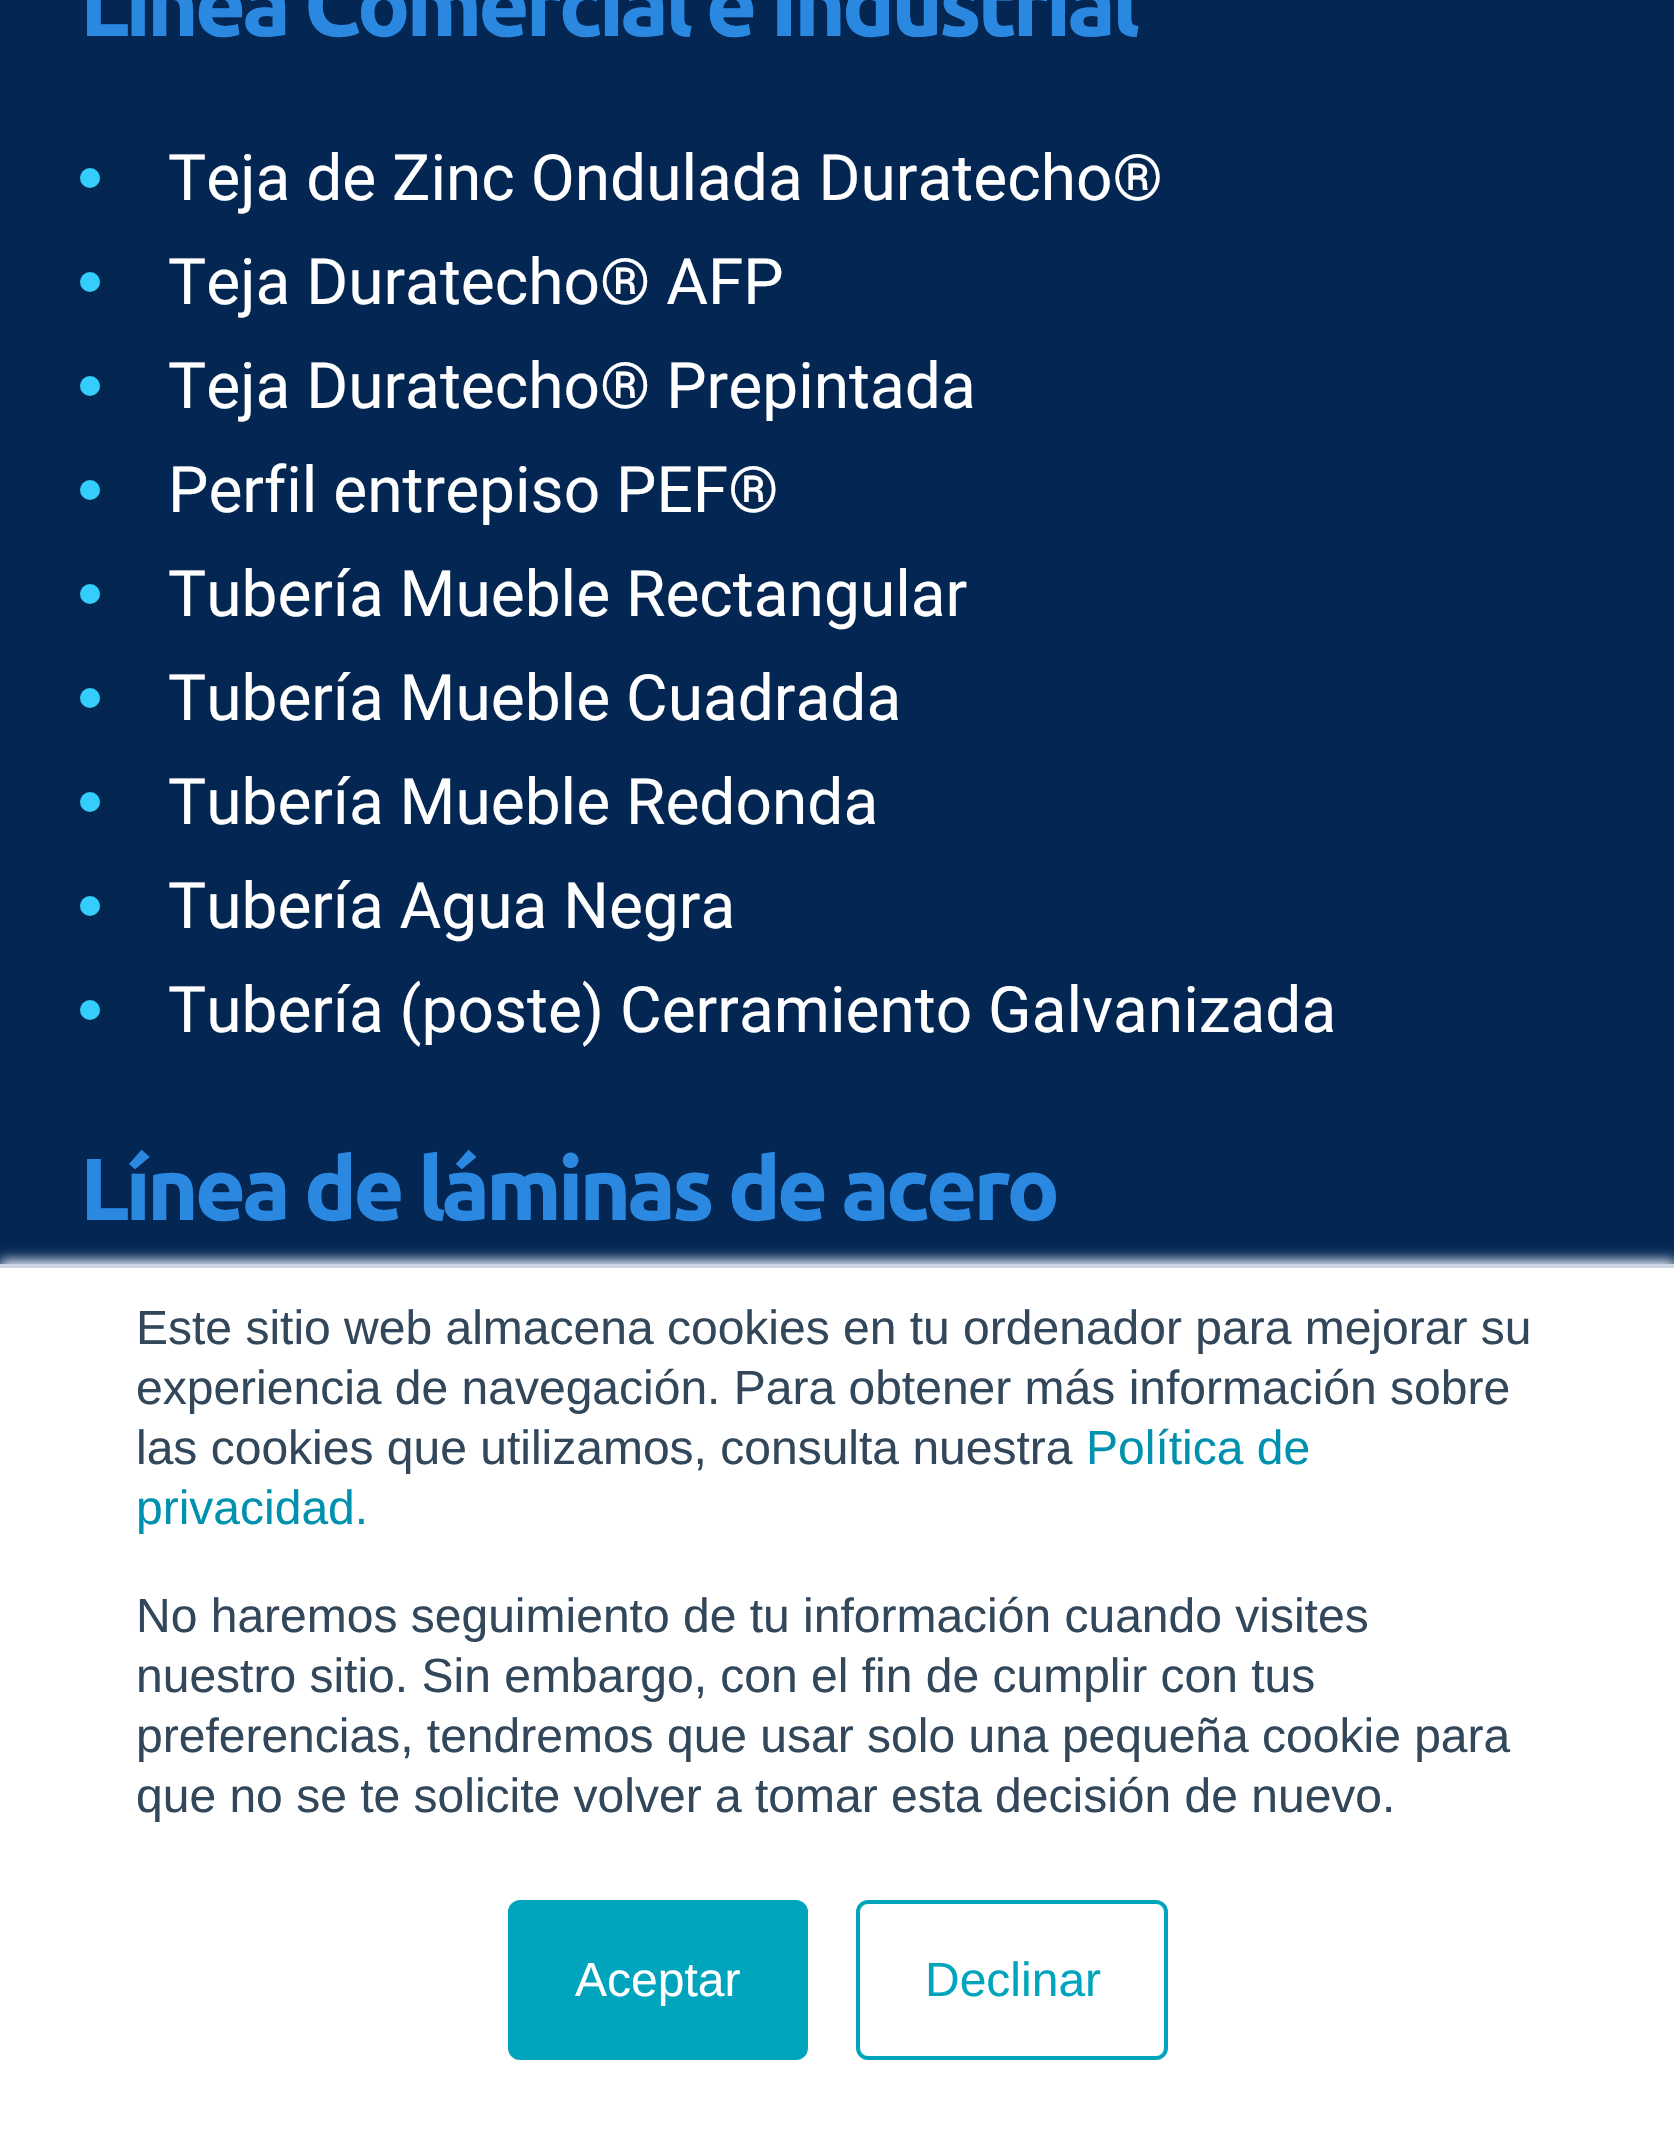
#include "include/core/SkBlurTypes.h"
#include "include/core/SkCanvas.h"
#include "include/core/SkData.h"
#include "include/core/SkFont.h"
#include "include/core/SkFontMgr.h"
#include "include/core/SkImage.h"
#include "include/core/SkMaskFilter.h"
#include "include/core/SkPaint.h"
#include "include/core/SkPathBuilder.h"
#include "include/core/SkTextBlob.h"
#include "include/effects/SkDashPathEffect.h"
#include "include/effects/SkGradientShader.h"
#include "include/utils/SkParsePath.h"

extern sk_sp<SkFontMgr> fontMgr;

void draw(SkCanvas* canvas) {
    SkPaint p;
    p.setAntiAlias(true);
    auto font = [&](const char* family, int weight, float size, bool italic = false) {
        SkFontStyle style(weight, SkFontStyle::kNormal_Width,
            italic ? SkFontStyle::kItalic_Slant : SkFontStyle::kUpright_Slant);
        SkFont result(fontMgr->matchFamilyStyle(family, style), size);
        result.setSubpixel(true);
        return result;
    };
    auto drawTracked = [&](const char* s, float x, float y, const SkFont& font, const SkPaint& ink, float letter, float word) {
        std::vector<SkGlyphID> glyphs(font.countText(s, strlen(s), SkTextEncoding::kUTF8));
        std::vector<float> xs(glyphs.size());
        font.textToGlyphs(s, strlen(s), SkTextEncoding::kUTF8, glyphs);
        font.getXPos(glyphs, xs, x);
        float extra = 0;
        for (size_t i = 0; i < glyphs.size(); i++) {
            xs[i] += extra;
            extra += letter + word * (glyphs[i] == font.unicharToGlyph(' '));
        }
        canvas->drawTextBlob(SkTextBlob::MakeFromPosHGlyphs(glyphs, xs, y, font), 0, 0, ink);
    };
    canvas->clear(0xFF032653);
    auto font1 = font("Ubuntu", 700, 88);
    p.setColor(0xFF2A88E1);
    drawTracked("Línea Comercial e Industrial", 80, 36, font1, p, -4, 0);
    p.setColor(0xFF33CEFB);
    canvas->drawCircle(90, 178, 10, p);
    auto font2 = font("Roboto", 400, 64);
    p.setColor(0xFFFFFFFF);
    canvas->drawString("Teja de Zinc Ondulada Duratecho®", 168, 200, font2, p);
    p.setColor(0xFF33CEFB);
    canvas->drawCircle(90, 282, 10, p);
    p.setColor(0xFFFFFFFF);
    canvas->drawString("Teja Duratecho® AFP", 168, 304, font2, p);
    p.setColor(0xFF33CEFB);
    canvas->drawCircle(90, 386, 10, p);
    p.setColor(0xFFFFFFFF);
    canvas->drawString("Teja Duratecho® Prepintada", 168, 408, font2, p);
    p.setColor(0xFF33CEFB);
    canvas->drawCircle(90, 490, 10, p);
    p.setColor(0xFFFFFFFF);
    canvas->drawString("Perfil entrepiso PEF®", 168, 512, font2, p);
    p.setColor(0xFF33CEFB);
    canvas->drawCircle(90, 594, 10, p);
    p.setColor(0xFFFFFFFF);
    canvas->drawString("Tubería Mueble Rectangular", 168, 616, font2, p);
    p.setColor(0xFF33CEFB);
    canvas->drawCircle(90, 698, 10, p);
    p.setColor(0xFFFFFFFF);
    canvas->drawString("Tubería Mueble Cuadrada", 168, 720, font2, p);
    p.setColor(0xFF33CEFB);
    canvas->drawCircle(90, 802, 10, p);
    p.setColor(0xFFFFFFFF);
    canvas->drawString("Tubería Mueble Redonda", 168, 824, font2, p);
    p.setColor(0xFF33CEFB);
    canvas->drawCircle(90, 906, 10, p);
    p.setColor(0xFFFFFFFF);
    canvas->drawString("Tubería Agua Negra", 168, 928, font2, p);
    p.setColor(0xFF33CEFB);
    canvas->drawCircle(90, 1010, 10, p);
    p.setColor(0xFFFFFFFF);
    canvas->drawString("Tubería (poste) Cerramiento Galvanizada", 168, 1032, font2, p);
    p.setColor(0xFF2A88E1);
    drawTracked("Línea de láminas de acero", 80, 1220, font1, p, -4, 0);
    p.setColor(0xFFEAF0F6);
    p.setMaskFilter(SkMaskFilter::MakeBlur(kNormal_SkBlurStyle, 6));
    canvas->drawRect(SkRect::MakeLTRB(0, 1260, 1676, 2136), p);
    p.setMaskFilter(nullptr);
    p.setColor(0xFFFFFFFF);
    canvas->drawRect(SkRect::MakeLTRB(0, 1268, 1674, 2139), p);
    p.setColor(0xFFCBD6E2);
    canvas->drawRect(SkRect::MakeLTRB(0, 1264, 1674, 1268), p);
    auto font3 = font("Liberation Sans", 400, 48);
    p.setColor(0xFF33475B);
    {
        const struct { const char* s; float x, y; } items[] = {
            {"Este sitio web almacena cookies en tu ordenador para mejorar su", 136, 1344},
            {"experiencia de navegación. Para obtener más información sobre", 136, 1404},
            {"las cookies que utilizamos, consulta nuestra", 136, 1464},
        };
        for (auto [s, x, y] : items) {
            canvas->drawString(s, x, y, font3, p);
        }
    }
    p.setColor(0xFF0091AE);
    canvas->drawString("Política de", 1086, 1464, font3, p);
    canvas->drawString("privacidad.", 136, 1524, font3, p);
    p.setColor(0xFF33475B);
    {
        const struct { const char* s; float x, y; } items[] = {
            {"No haremos seguimiento de tu información cuando visites", 136, 1632},
            {"nuestro sitio. Sin embargo, con el fin de cumplir con tus", 136, 1692},
            {"preferencias, tendremos que usar solo una pequeña cookie para", 136, 1752},
            {"que no se te solicite volver a tomar esta decisión de nuevo.", 136, 1812},
        };
        for (auto [s, x, y] : items) {
            canvas->drawString(s, x, y, font3, p);
        }
    }
    p.setColor(0xFF00A4BD);
    canvas->drawRoundRect(SkRect::MakeLTRB(510, 1902, 806, 2058), 10, 10, p);
    p.setStyle(SkPaint::kStroke_Style);
    p.setStrokeWidth(4);
    canvas->drawRoundRect(SkRect::MakeLTRB(510, 1902, 806, 2058), 10, 10, p);
    p.setStyle(SkPaint::kFill_Style);
    p.setColor(0xFFFFFFFF);
    canvas->drawString("Aceptar", 575, 1996, font3, p);
    p.setStyle(SkPaint::kStroke_Style);
    p.setColor(0xFF00A4BD);
    canvas->drawRoundRect(SkRect::MakeLTRB(858, 1902, 1166, 2058), 10, 10, p);
    p.setStyle(SkPaint::kFill_Style);
    canvas->drawString("Declinar", 925, 1996, font3, p);
}
